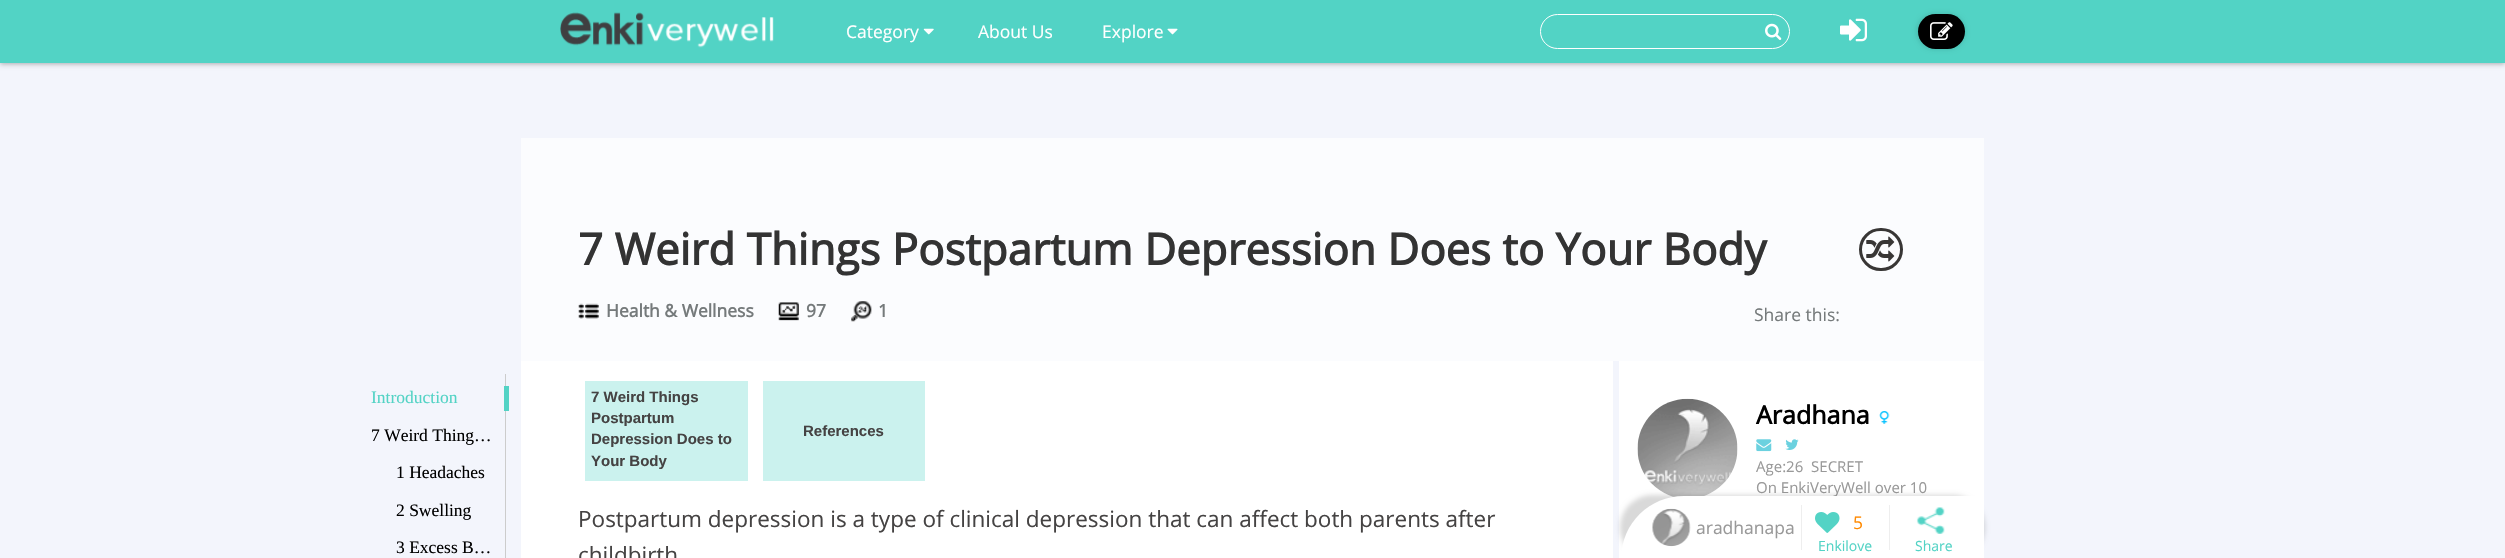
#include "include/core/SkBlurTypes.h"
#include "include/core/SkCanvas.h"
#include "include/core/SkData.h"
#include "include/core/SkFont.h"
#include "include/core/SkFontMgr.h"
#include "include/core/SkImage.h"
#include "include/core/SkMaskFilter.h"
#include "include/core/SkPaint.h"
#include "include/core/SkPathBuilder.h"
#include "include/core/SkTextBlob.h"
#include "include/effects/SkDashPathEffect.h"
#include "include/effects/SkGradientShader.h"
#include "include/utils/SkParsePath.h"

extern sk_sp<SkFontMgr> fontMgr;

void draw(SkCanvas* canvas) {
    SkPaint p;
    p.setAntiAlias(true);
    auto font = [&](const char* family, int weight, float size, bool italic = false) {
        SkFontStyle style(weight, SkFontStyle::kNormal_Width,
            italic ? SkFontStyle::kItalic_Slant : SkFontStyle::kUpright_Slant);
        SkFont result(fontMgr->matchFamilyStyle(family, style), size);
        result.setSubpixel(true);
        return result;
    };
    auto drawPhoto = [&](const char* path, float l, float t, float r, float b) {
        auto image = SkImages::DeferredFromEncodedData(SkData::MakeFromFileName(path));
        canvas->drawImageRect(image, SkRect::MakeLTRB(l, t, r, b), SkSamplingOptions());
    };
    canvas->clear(0xFFF3F5FC);
    p.setColor(0x4D000000);
    p.setMaskFilter(SkMaskFilter::MakeBlur(kNormal_SkBlurStyle, 2.5f));
    canvas->drawRect(SkRect::MakeLTRB(0, 1, 2505, 64), p);
    p.setMaskFilter(nullptr);
    p.setColor(0xFF52D3C5);
    canvas->drawRect(SkRect::MakeLTRB(0, 0, 2505, 63), p);
    drawPhoto("media/1.png", 560, 12, 774, 48);
    auto font1 = font("Open Sans", 400, 17.5f);
    p.setColor(0xFFFFFFFF);
    canvas->drawString("Category", 846, 38, font1, p);
    drawPhoto("media/2.png", 923, 28, 934, 35);
    canvas->drawString("About Us", 978, 38, font1, p);
    canvas->drawString("Explore", 1102, 38, font1, p);
    drawPhoto("media/3.png", 1167, 28, 1178, 35);
    p.setStyle(SkPaint::kStroke_Style);
    p.setStrokeWidth(1);
    canvas->drawRoundRect(SkRect::MakeLTRB(1540.5f, 14.5f, 1789.5f, 48.5f), 17, 17, p);
    drawPhoto("media/4.png", 1765, 23, 1782, 40);
    drawPhoto("media/5.png", 1840, 18, 1867, 42);
    p.setStyle(SkPaint::kFill_Style);
    p.setColor(0x1A000000);
    p.setMaskFilter(SkMaskFilter::MakeBlur(kNormal_SkBlurStyle, 2));
    canvas->drawRoundRect(SkRect::MakeLTRB(1916, 13, 1966, 50), 18.5f, 18.5f, p);
    p.setMaskFilter(nullptr);
    p.setColor(0xFF000000);
    canvas->drawRoundRect(SkRect::MakeLTRB(1918, 14, 1965, 49), 17.5f, 17.5f, p);
    drawPhoto("media/6.png", 1930, 22, 1953, 40);
    p.setColor(0xFFFBFCFE);
    canvas->drawRect(SkRect::MakeLTRB(521, 138, 1984, 361), p);
    auto font2 = font("Open Sans", 700, 43.75f);
    p.setColor(0xFF333333);
    canvas->drawString("7 Weird Things Postpartum Depression Does to Your Body", 578, 265, font2, p);
    p.setStyle(SkPaint::kStroke_Style);
    p.setStrokeWidth(3);
    p.setColor(0xFF383635);
    canvas->drawRoundRect(SkRect::MakeLTRB(1860.5f, 229.5f, 1901.5f, 269.5f), 20, 20, p);
    drawPhoto("media/7.png", 1866, 236, 1895, 262);
    drawPhoto("media/8.png", 578, 303, 599, 319);
    auto font3 = font("Open Sans", 700, 17.5f);
    p.setStyle(SkPaint::kFill_Style);
    p.setColor(0xFF757A7B);
    canvas->drawString("Health & Wellness", 606, 317, font3, p);
    drawPhoto("media/9.png", 778, 302, 800, 321);
    canvas->drawString("97", 806, 317, font3, p);
    drawPhoto("media/10.png", 851, 301, 872, 322);
    canvas->drawString("1", 878, 317, font3, p);
    canvas->drawString("Share this:", 1754, 321, font1, p);
    auto font4 = font("Liberation Serif", 400, 17.5f);
    p.setColor(0xFF53D3C5);
    canvas->drawString("Introduction", 371, 403, font4, p);
    p.setColor(0xFFCCCCCC);
    canvas->drawRect(SkRect::MakeLTRB(505, 374, 506, 558), p);
    p.setColor(0xFF53D3C5);
    canvas->drawRect(SkRect::MakeLTRB(504, 386, 509, 411), p);
    p.setColor(0xFF000000);
    {
        const struct { const char* s; float x, y; } items[] = {
            {"7 Weird Thing…", 371, 441},
            {"1 Headaches", 396, 478},
            {"2 Swelling", 396, 516},
            {"3 Excess B…", 396, 553},
        };
        for (auto [s, x, y] : items) {
            canvas->drawString(s, x, y, font4, p);
        }
    }
    p.setColor(0xFFFFFFFF);
    canvas->drawRect(SkRect::MakeLTRB(521, 361, 1613, 558), p);
    p.setColor(0xFFCBF2EE);
    canvas->drawRect(SkRect::MakeLTRB(585, 381, 748, 481), p);
    auto font5 = font("Liberation Sans", 700, 15);
    p.setColor(0xFF454343);
    {
        const struct { const char* s; float x, y; } items[] = {
            {"7 Weird Things", 591, 402},
            {"Postpartum", 591, 423},
            {"Depression Does to", 591, 444},
            {"Your Body", 591, 466},
        };
        for (auto [s, x, y] : items) {
            canvas->drawString(s, x, y, font5, p);
        }
    }
    p.setColor(0xFFCBF2EE);
    canvas->drawRect(SkRect::MakeLTRB(763, 381, 925, 481), p);
    p.setColor(0xFF454343);
    canvas->drawString("References", 803, 436, font5, p);
    auto font6 = font("Open Sans", 400, 22.5f);
    canvas->drawString("Postpartum depression is a type of clinical depression that can affect both parents after", 578, 527, font6, p);
    canvas->drawString("childbirth", 578, 563, font6, p);
    p.setColor(0xFFFFFFFF);
    canvas->drawRect(SkRect::MakeLTRB(1619, 361, 1984, 558), p);
    drawPhoto("media/11.png", 1637, 398, 1738, 497);
    auto font7 = font("Open Sans", 700, 25);
    p.setColor(0xFF000000);
    canvas->drawString("Aradhana", 1756, 424, font7, p);
    drawPhoto("media/12.png", 1879, 411, 1890, 424);
    drawPhoto("media/13.png", 1756, 439, 1772, 452);
    drawPhoto("media/14.png", 1785, 439, 1799, 450);
    auto font8 = font("Open Sans", 400, 15);
    p.setColor(0xFF999999);
    canvas->drawString("Age:26  SECRET", 1756, 472, font8, p);
    canvas->drawString("On EnkiVeryWell over 10", 1756, 493, font8, p);
    p.setColor(0x26000000);
    p.setMaskFilter(SkMaskFilter::MakeBlur(kNormal_SkBlurStyle, 2.5f));
    canvas->drawRoundRect(SkRect::MakeLTRB(1620, 495, 1985, 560), 64, 64, p);
    p.setMaskFilter(nullptr);
    p.setColor(0xFFFFFFFF);
    canvas->drawPath(SkPathBuilder().moveTo(1684, 496).lineTo(1984, 496).lineTo(1984, 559).lineTo(1621, 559).cubicTo(1621, 524, 1649, 496, 1684, 496).close().detach(), p);
    p.setColor(0xFFEEEEEE);
    canvas->drawRect(SkRect::MakeLTRB(1801, 505, 1802, 550), p);
    drawPhoto("media/15.png", 1652, 508, 1691, 547);
    p.setColor(0xFF999999);
    canvas->drawString("aradhanapa", 1696, 534, font1, p);
    p.setColor(0xFFEEEEEE);
    canvas->drawRect(SkRect::MakeLTRB(1889, 505, 1890, 550), p);
    drawPhoto("media/16.png", 1815, 512, 1840, 533);
    p.setColor(0xFFFF8900);
    canvas->drawString("5", 1853, 529, font1, p);
    auto font9 = font("Open Sans", 400, 14);
    p.setColor(0xFF53D3C5);
    canvas->drawString("Enkilove", 1818, 551, font9, p);
    drawPhoto("media/17.png", 1916, 507, 1945, 534);
    canvas->drawString("Share", 1915, 551, font9, p);
}
